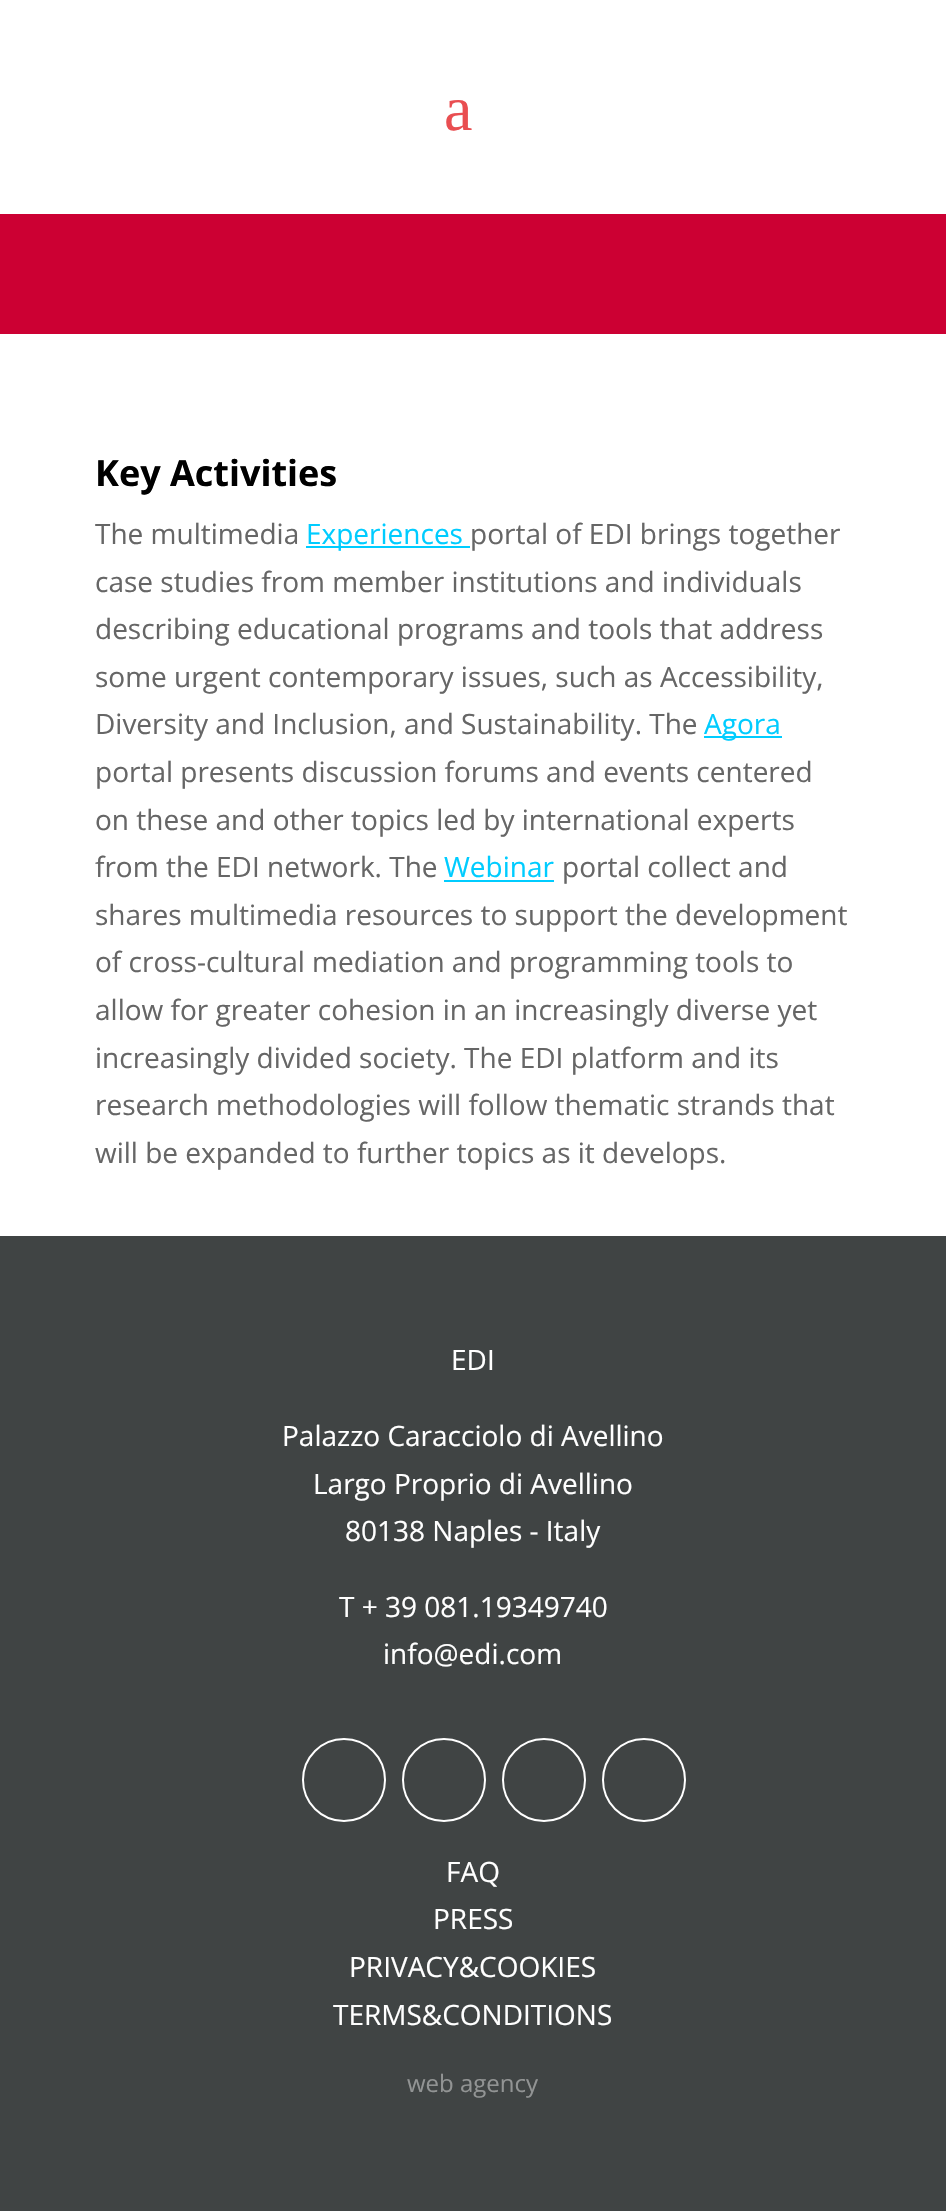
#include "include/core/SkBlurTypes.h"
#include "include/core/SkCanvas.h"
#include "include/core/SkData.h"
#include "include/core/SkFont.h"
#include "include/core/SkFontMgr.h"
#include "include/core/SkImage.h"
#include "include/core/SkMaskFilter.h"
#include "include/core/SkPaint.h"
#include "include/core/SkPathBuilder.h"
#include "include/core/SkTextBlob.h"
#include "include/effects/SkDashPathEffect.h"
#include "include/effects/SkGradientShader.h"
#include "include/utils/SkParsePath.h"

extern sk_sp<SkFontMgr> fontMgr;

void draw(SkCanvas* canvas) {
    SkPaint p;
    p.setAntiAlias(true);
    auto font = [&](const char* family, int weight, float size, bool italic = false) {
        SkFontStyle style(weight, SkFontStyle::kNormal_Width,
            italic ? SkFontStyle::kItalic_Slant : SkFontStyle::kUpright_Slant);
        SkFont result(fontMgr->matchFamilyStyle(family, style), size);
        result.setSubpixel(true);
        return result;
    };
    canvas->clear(0xFFFFFFFF);
    auto font1 = font("Liberation Serif", 400, 64);
    p.setColor(0xFFE94E51);
    canvas->drawString("a", 444, 130, font1, p);
    p.setColor(0xFFCC0033);
    canvas->drawRect(SkRect::MakeLTRB(0, 214, 946, 334), p);
    auto font2 = font("Open Sans", 700, 36);
    p.setColor(0xFF000000);
    canvas->drawString("Key Activities", 95, 486, font2, p);
    auto font3 = font("Open Sans", 400, 28);
    p.setColor(0xFF666666);
    canvas->drawString("The multimedia", 95, 544, font3, p);
    p.setColor(0xFF00CCFF);
    canvas->drawRect(SkRect::MakeLTRB(306, 546, 470, 548), p);
    canvas->drawString("Experiences", 306, 544, font3, p);
    p.setColor(0xFF666666);
    {
        const struct { const char* s; float x, y; } items[] = {
            {"portal of EDI brings together", 470, 544},
            {"case studies from member institutions and individuals", 95, 592},
            {"describing educational programs and tools that address", 95, 639},
            {"some urgent contemporary issues, such as Accessibility,", 95, 687},
            {"Diversity and Inclusion, and Sustainability. The", 95, 734},
        };
        for (auto [s, x, y] : items) {
            canvas->drawString(s, x, y, font3, p);
        }
    }
    p.setColor(0xFF00CCFF);
    canvas->drawRect(SkRect::MakeLTRB(704, 736, 782, 738), p);
    canvas->drawString("Agora", 704, 734, font3, p);
    p.setColor(0xFF666666);
    {
        const struct { const char* s; float x, y; } items[] = {
            {"portal presents discussion forums and events centered", 95, 782},
            {"on these and other topics led by international experts", 95, 830},
            {"from the EDI network. The", 95, 877},
        };
        for (auto [s, x, y] : items) {
            canvas->drawString(s, x, y, font3, p);
        }
    }
    p.setColor(0xFF00CCFF);
    canvas->drawString("Webinar", 444, 877, font3, p);
    canvas->drawRect(SkRect::MakeLTRB(444, 880, 554, 882), p);
    p.setColor(0xFF666666);
    {
        const struct { const char* s; float x, y; } items[] = {
            {"portal collect and", 562, 877},
            {"shares multimedia resources to support the development", 95, 925},
            {"of cross-cultural mediation and programming tools to", 95, 972},
            {"allow for greater cohesion in an increasingly diverse yet", 95, 1020},
            {"increasingly divided society. The EDI platform and its", 95, 1068},
            {"research methodologies will follow thematic strands that", 95, 1115},
            {"will be expanded to further topics as it develops.", 95, 1163},
        };
        for (auto [s, x, y] : items) {
            canvas->drawString(s, x, y, font3, p);
        }
    }
    p.setColor(0xFF404444);
    canvas->drawRect(SkRect::MakeLTRB(0, 1236, 946, 2211), p);
    p.setColor(0xFFFFFFFF);
    {
        const struct { const char* s; float x, y; } items[] = {
            {"EDI", 451, 1370},
            {"Palazzo Caracciolo di Avellino", 282, 1446},
            {"Largo Proprio di Avellino", 313, 1494},
            {"80138 Naples - Italy", 345, 1541},
            {"T + 39 081.19349740", 339, 1617},
            {"info@edi.com", 383, 1664},
        };
        for (auto [s, x, y] : items) {
            canvas->drawString(s, x, y, font3, p);
        }
    }
    p.setStyle(SkPaint::kStroke_Style);
    p.setStrokeWidth(2);
    canvas->drawCircle(344, 1780, 41, p);
    canvas->drawCircle(444, 1780, 41, p);
    canvas->drawCircle(544, 1780, 41, p);
    canvas->drawCircle(644, 1780, 41, p);
    p.setStyle(SkPaint::kFill_Style);
    {
        const struct { const char* s; float x, y; } items[] = {
            {"FAQ", 446, 1882},
            {"PRESS", 433, 1929},
            {"PRIVACY&COOKIES", 349, 1977},
            {"TERMS&CONDITIONS", 333, 2025},
        };
        for (auto [s, x, y] : items) {
            canvas->drawString(s, x, y, font3, p);
        }
    }
    auto font4 = font("Open Sans", 400, 24);
    p.setColor(0xFF929494);
    canvas->drawString("web agency", 407, 2092, font4, p);
}
